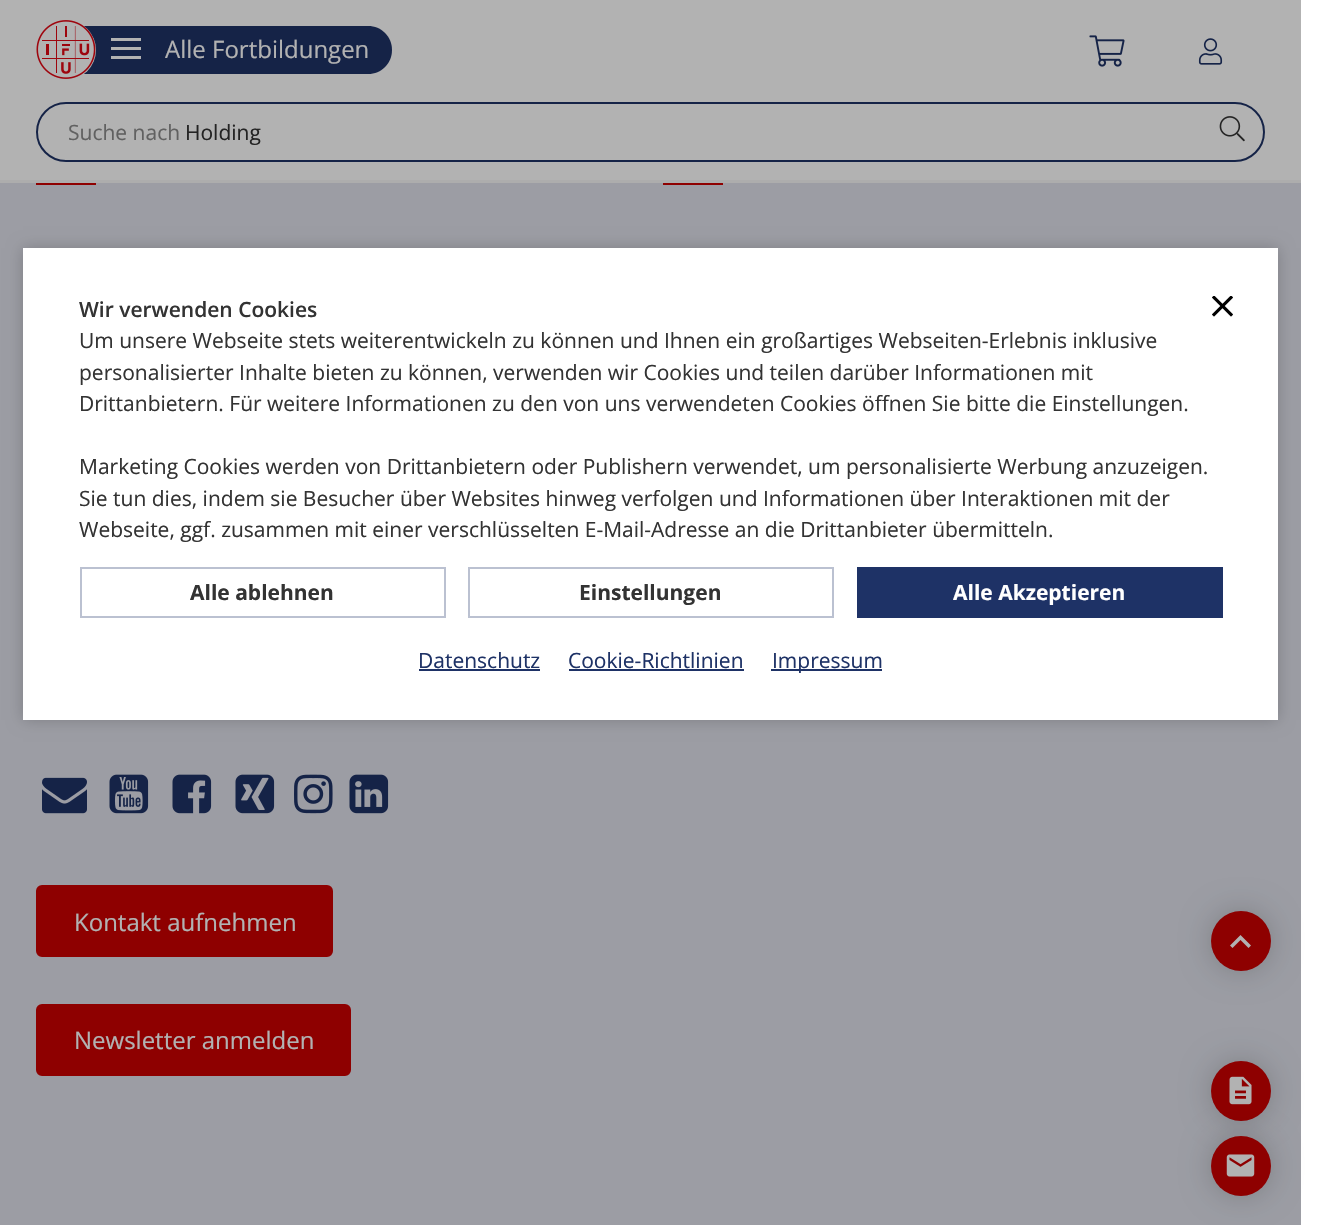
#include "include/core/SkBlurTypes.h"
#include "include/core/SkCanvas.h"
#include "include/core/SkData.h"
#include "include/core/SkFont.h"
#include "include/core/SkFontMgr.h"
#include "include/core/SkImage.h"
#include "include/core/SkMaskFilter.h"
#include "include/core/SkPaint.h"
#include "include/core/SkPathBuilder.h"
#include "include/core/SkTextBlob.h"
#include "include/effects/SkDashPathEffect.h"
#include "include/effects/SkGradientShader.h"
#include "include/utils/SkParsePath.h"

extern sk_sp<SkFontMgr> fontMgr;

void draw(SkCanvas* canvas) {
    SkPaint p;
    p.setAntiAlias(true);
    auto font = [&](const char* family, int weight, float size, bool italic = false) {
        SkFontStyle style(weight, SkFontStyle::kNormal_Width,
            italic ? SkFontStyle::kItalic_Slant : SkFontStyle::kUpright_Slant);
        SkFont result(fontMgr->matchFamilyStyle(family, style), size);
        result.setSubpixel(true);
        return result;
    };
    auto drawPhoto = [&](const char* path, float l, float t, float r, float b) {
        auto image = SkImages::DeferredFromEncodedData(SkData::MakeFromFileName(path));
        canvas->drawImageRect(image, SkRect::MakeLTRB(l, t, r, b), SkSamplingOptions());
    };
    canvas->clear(0xFFFFFFFF);
    p.setColor(0xFFF8F8F8);
    canvas->drawRect(SkRect::MakeLTRB(0, 180, 1301, 183), p);
    p.setColor(0xFF1E3266);
    canvas->drawPath(SkPathBuilder().moveTo(74, 26).lineTo(368, 26).cubicTo(381.5f, 26, 392, 36.5f, 392, 50).cubicTo(392, 63.5f, 381.5f, 74, 368, 74).lineTo(74, 74).close().detach(), p);
    p.setColor(0xFFFFFFFF);
    canvas->drawCircle(66, 50, 30, p);
    drawPhoto("media/1.png", 36, 20, 96, 79);
    {
        const struct { float l, t, r, b; SkColor color; } items[] = {
            {111, 38, 141, 41, 0xFFFFFFFF},
            {111, 47, 141, 50, 0xFFFFFFFF},
            {111, 56, 141, 59, 0xFFFFFFFF},
        };
        for (auto [l, t, r, b, color] : items) {
            p.setColor(color);
            canvas->drawRect(SkRect::MakeLTRB(l, t, r, b), p);
        }
    }
    auto font1 = font("Open Sans", 400, 24);
    canvas->drawString("Alle Fortbildungen", 165, 58, font1, p);
    drawPhoto("media/2.png", 1089, 35, 1125, 67);
    drawPhoto("media/3.png", 1198, 38, 1223, 65);
    p.setStyle(SkPaint::kStroke_Style);
    p.setStrokeWidth(2);
    p.setColor(0xFF1E3266);
    canvas->drawRoundRect(SkRect::MakeLTRB(37, 103, 1264, 161), 29, 29, p);
    auto font2 = font("Open Sans", 400, 21);
    p.setStyle(SkPaint::kFill_Style);
    p.setColor(0xFF8B8B8B);
    canvas->drawString("Suche nach", 68, 140, font2, p);
    p.setColor(0xFF333333);
    canvas->drawString("Holding", 185, 140, font2, p);
    drawPhoto("media/4.png", 1219, 116, 1245, 142);
    {
        const struct { float l, t, r, b; SkColor color; } items[] = {
            {0, 183, 1301, 1225, 0xFFDFE1EB},
            {36, 183, 96, 185, 0xFFCC0000},
            {663, 183, 723, 185, 0xFFCC0000},
        };
        for (auto [l, t, r, b, color] : items) {
            p.setColor(color);
            canvas->drawRect(SkRect::MakeLTRB(l, t, r, b), p);
        }
    }
    drawPhoto("media/6.png", 42, 777, 87, 814);
    drawPhoto("media/7.png", 109, 774, 149, 814);
    drawPhoto("media/8.png", 172, 774, 212, 814);
    drawPhoto("media/9.png", 235, 774, 275, 814);
    drawPhoto("media/10.png", 294, 774, 333, 814);
    drawPhoto("media/11.png", 349, 774, 389, 814);
    canvas->drawRoundRect(SkRect::MakeLTRB(37, 886, 332, 956), 5, 5, p);
    p.setStyle(SkPaint::kStroke_Style);
    canvas->drawRoundRect(SkRect::MakeLTRB(37, 886, 332, 956), 5, 5, p);
    p.setStyle(SkPaint::kFill_Style);
    p.setColor(0xFFFFFFFF);
    canvas->drawString("Kontakt aufnehmen", 74, 931, font1, p);
    p.setColor(0xFFCC0000);
    canvas->drawRoundRect(SkRect::MakeLTRB(37, 1005, 350, 1075), 5, 5, p);
    p.setStyle(SkPaint::kStroke_Style);
    canvas->drawRoundRect(SkRect::MakeLTRB(37, 1005, 350, 1075), 5, 5, p);
    p.setStyle(SkPaint::kFill_Style);
    p.setColor(0xFFFFFFFF);
    canvas->drawString("Newsletter anmelden", 74, 1049, font1, p);
    p.setColor(0x33000000);
    p.setMaskFilter(SkMaskFilter::MakeBlur(kNormal_SkBlurStyle, 15));
    canvas->drawRoundRect(SkRect::MakeLTRB(1211, 911, 1271, 971), 30, 30, p);
    p.setMaskFilter(nullptr);
    p.setColor(0xFFCC0000);
    canvas->drawCircle(1241, 941, 30, p);
    p.setColor(0xFFFFFFFF);
    canvas->drawPath(SkPathBuilder().moveTo(1232.5f, 948).lineTo(1230, 945.5f).lineTo(1240.5f, 935).lineTo(1251, 945.5f).lineTo(1248.5f, 948).lineTo(1240.5f, 940).close().detach(), p);
    p.setColor(0x33000000);
    p.setMaskFilter(SkMaskFilter::MakeBlur(kNormal_SkBlurStyle, 15));
    canvas->drawRoundRect(SkRect::MakeLTRB(1211, 1061, 1271, 1121), 30, 30, p);
    p.setMaskFilter(nullptr);
    p.setColor(0xFFCC0000);
    canvas->drawCircle(1241, 1091, 30, p);
    drawPhoto("media/12.png", 1229, 1076, 1252, 1105);
    p.setColor(0x33000000);
    p.setMaskFilter(SkMaskFilter::MakeBlur(kNormal_SkBlurStyle, 15));
    canvas->drawRoundRect(SkRect::MakeLTRB(1211, 1136, 1271, 1196), 30, 30, p);
    p.setMaskFilter(nullptr);
    p.setColor(0xFFCC0000);
    canvas->drawCircle(1241, 1166, 30, p);
    drawPhoto("media/13.png", 1226, 1154, 1255, 1177);
    p.setColor(0x4D000000);
    canvas->drawRect(SkRect::MakeLTRB(0, 0, 1301, 1225), p);
    p.setColor(0x33000000);
    p.setMaskFilter(SkMaskFilter::MakeBlur(kNormal_SkBlurStyle, 7.5f));
    canvas->drawRect(SkRect::MakeLTRB(23, 248, 1278, 720), p);
    p.setMaskFilter(nullptr);
    p.setColor(0xFFFFFFFF);
    canvas->drawRect(SkRect::MakeLTRB(23, 248, 1278, 720), p);
    auto font3 = font("Open Sans", 600, 21);
    p.setColor(0xFF333333);
    canvas->drawString("Wir verwenden Cookies", 79, 317, font3, p);
    {
        const struct { const char* s; float x, y; } items[] = {
            {"Um unsere Webseite stets weiterentwickeln zu können und Ihnen ein großartiges Webseiten-Erlebnis inklusive", 79, 348},
            {"personalisierter Inhalte bieten zu können, verwenden wir Cookies und teilen darüber Informationen mit", 79, 380},
            {"Drittanbietern. Für weitere Informationen zu den von uns verwendeten Cookies öffnen Sie bitte die Einstellungen.", 79, 411},
            {"Marketing Cookies werden von Drittanbietern oder Publishern verwendet, um personalisierte Werbung anzuzeigen.", 79, 474},
            {"Sie tun dies, indem sie Besucher über Websites hinweg verfolgen und Informationen über Interaktionen mit der", 79, 506},
            {"Webseite, ggf. zusammen mit einer verschlüsselten E-Mail-Adresse an die Drittanbieter übermitteln.", 79, 537},
        };
        for (auto [s, x, y] : items) {
            canvas->drawString(s, x, y, font2, p);
        }
    }
    p.setStyle(SkPaint::kStroke_Style);
    p.setColor(0xFFBBC1D1);
    canvas->drawRect(SkRect::MakeLTRB(81, 568, 445, 617), p);
    auto font4 = font("Open Sans", 700, 21);
    p.setStyle(SkPaint::kFill_Style);
    p.setColor(0xFF333333);
    canvas->drawString("Alle ablehnen", 190, 600, font4, p);
    p.setStyle(SkPaint::kStroke_Style);
    p.setColor(0xFFBBC1D1);
    canvas->drawRect(SkRect::MakeLTRB(469, 568, 833, 617), p);
    p.setStyle(SkPaint::kFill_Style);
    p.setColor(0xFF333333);
    canvas->drawString("Einstellungen", 579, 600, font4, p);
    p.setColor(0xFF1E3266);
    canvas->drawRect(SkRect::MakeLTRB(857, 567, 1223, 618), p);
    p.setColor(0xFFFFFFFF);
    canvas->drawString("Alle Akzeptieren", 953, 600, font4, p);
    p.setColor(0xFF1E3266);
    canvas->drawString("Datenschutz", 418, 668, font2, p);
    canvas->drawRect(SkRect::MakeLTRB(419, 669, 540, 671), p);
    canvas->drawString("Cookie-Richtlinien", 568, 668, font2, p);
    canvas->drawRect(SkRect::MakeLTRB(569, 669, 744, 671), p);
    canvas->drawRect(SkRect::MakeLTRB(771, 669, 882, 671), p);
    canvas->drawString("Impressum", 772, 668, font2, p);
    drawPhoto("media/5.png", 1212, 296, 1233, 317);
}
